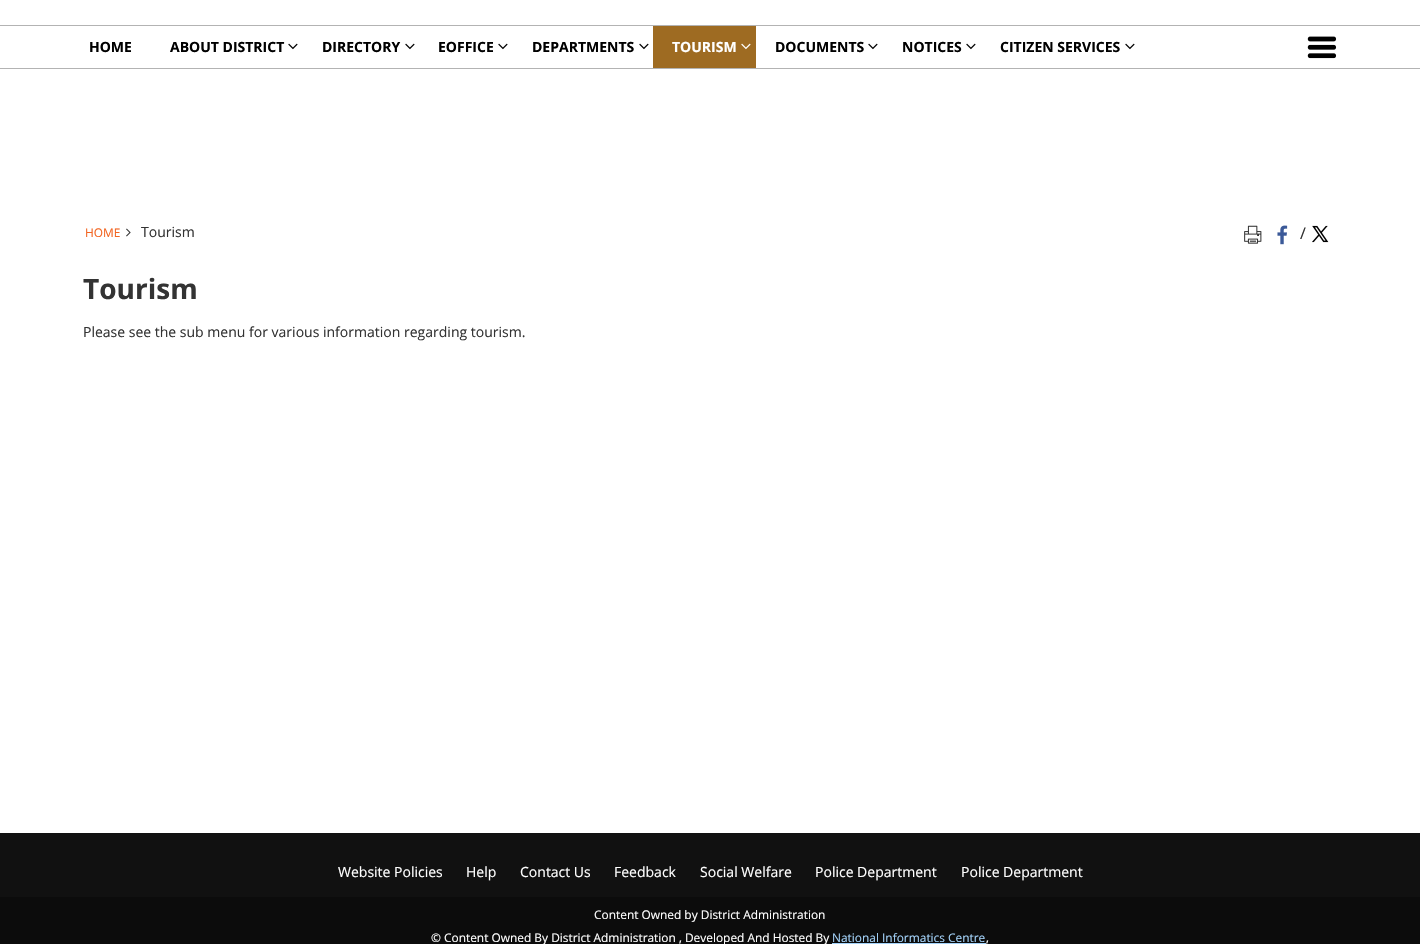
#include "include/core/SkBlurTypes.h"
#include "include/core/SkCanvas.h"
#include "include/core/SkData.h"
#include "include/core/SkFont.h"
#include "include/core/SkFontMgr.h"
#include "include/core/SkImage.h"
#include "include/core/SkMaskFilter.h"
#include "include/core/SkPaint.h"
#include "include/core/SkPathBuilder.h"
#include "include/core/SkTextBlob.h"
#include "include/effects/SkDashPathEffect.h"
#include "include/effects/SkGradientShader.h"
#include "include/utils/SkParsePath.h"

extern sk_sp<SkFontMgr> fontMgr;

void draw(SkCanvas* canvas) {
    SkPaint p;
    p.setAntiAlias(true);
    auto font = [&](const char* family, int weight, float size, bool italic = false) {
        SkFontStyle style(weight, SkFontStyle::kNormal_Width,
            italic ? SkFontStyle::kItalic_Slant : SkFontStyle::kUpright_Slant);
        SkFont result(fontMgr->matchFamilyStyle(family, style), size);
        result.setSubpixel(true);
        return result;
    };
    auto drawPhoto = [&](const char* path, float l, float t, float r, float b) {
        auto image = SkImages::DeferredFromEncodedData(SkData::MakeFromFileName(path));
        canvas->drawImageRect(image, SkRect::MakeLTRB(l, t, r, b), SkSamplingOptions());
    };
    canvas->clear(0xFFFFFFFF);
    p.setColor(0xFFB3B3B3);
    canvas->drawRect(SkRect::MakeLTRB(0, 25, 1420, 26), p);
    canvas->drawRect(SkRect::MakeLTRB(0, 68, 1420, 69), p);
    auto font1 = font("Open Sans", 700, 14);
    p.setColor(0xFF000000);
    canvas->drawString("HOME", 89, 52, font1, p);
    canvas->drawString("ABOUT DISTRICT", 170, 52, font1, p);
    drawPhoto("media/1.png", 288, 43, 298, 50);
    canvas->drawString("DIRECTORY", 322, 52, font1, p);
    drawPhoto("media/1.png", 405, 43, 415, 50);
    canvas->drawString("EOFFICE", 438, 52, font1, p);
    drawPhoto("media/1.png", 498, 43, 508, 50);
    canvas->drawString("DEPARTMENTS", 532, 52, font1, p);
    drawPhoto("media/1.png", 639, 43, 649, 50);
    p.setColor(0xFF9E6B22);
    canvas->drawRect(SkRect::MakeLTRB(653, 26, 756, 68), p);
    p.setColor(0xFFFFFFFF);
    canvas->drawString("TOURISM", 672, 52, font1, p);
    drawPhoto("media/2.png", 741, 43, 751, 50);
    p.setColor(0xFF000000);
    canvas->drawString("DOCUMENTS", 775, 52, font1, p);
    drawPhoto("media/1.png", 868, 43, 878, 50);
    canvas->drawString("NOTICES", 902, 52, font1, p);
    drawPhoto("media/1.png", 966, 43, 976, 50);
    canvas->drawString("CITIZEN SERVICES", 1000, 52, font1, p);
    drawPhoto("media/1.png", 1125, 43, 1135, 50);
    drawPhoto("media/3.png", 1307, 36, 1337, 59);
    auto font2 = font("Open Sans", 400, 11.9f);
    p.setColor(0xFFF26522);
    canvas->drawString("HOME", 85, 237, font2, p);
    drawPhoto("media/4.png", 126, 228, 131, 237);
    auto font3 = font("Open Sans", 400, 14);
    p.setColor(0xFF333333);
    canvas->drawString("Tourism", 141, 237, font3, p);
    drawPhoto("media/5.png", 1244, 225, 1262, 244);
    drawPhoto("media/6.png", 1277, 225, 1288, 245);
    auto font4 = font("Open Sans", 400, 16);
    canvas->drawString("/", 1300, 239, font4, p);
    drawPhoto("media/7.png", 1312, 225, 1329, 243);
    auto font5 = font("Open Sans", 700, 28);
    canvas->drawString("Tourism", 83, 299, font5, p);
    canvas->drawString("Please see the sub menu for various information regarding tourism.", 83, 337, font3, p);
    p.setColor(0xFF111111);
    canvas->drawRect(SkRect::MakeLTRB(0, 833, 1420, 897), p);
    p.setColor(0xFFFFFFFF);
    {
        const struct { const char* s; float x, y; } items[] = {
            {"Website Policies", 338, 877},
            {"Help", 466, 877},
            {"Contact Us", 520, 877},
            {"Feedback", 614, 877},
            {"Social Welfare", 700, 877},
            {"Police Department", 815, 877},
            {"Police Department", 961, 877},
        };
        for (auto [s, x, y] : items) {
            canvas->drawString(s, x, y, font3, p);
        }
    }
    p.setColor(0xFF0C0C0C);
    canvas->drawRect(SkRect::MakeLTRB(0, 897, 1420, 944), p);
    p.setColor(0xFFFFFFFF);
    canvas->drawString("Content Owned by District Administration", 594, 919, font2, p);
    canvas->drawString("© Content Owned By District Administration , Developed And Hosted By", 431, 942, font2, p);
    p.setColor(0xFFA3D2F9);
    canvas->drawString("National Informatics Centre", 832, 942, font2, p);
    canvas->drawRect(SkRect::MakeLTRB(832, 943, 986, 944), p);
    p.setColor(0xFFFFFFFF);
    canvas->drawString(",", 986, 942, font2, p);
}
